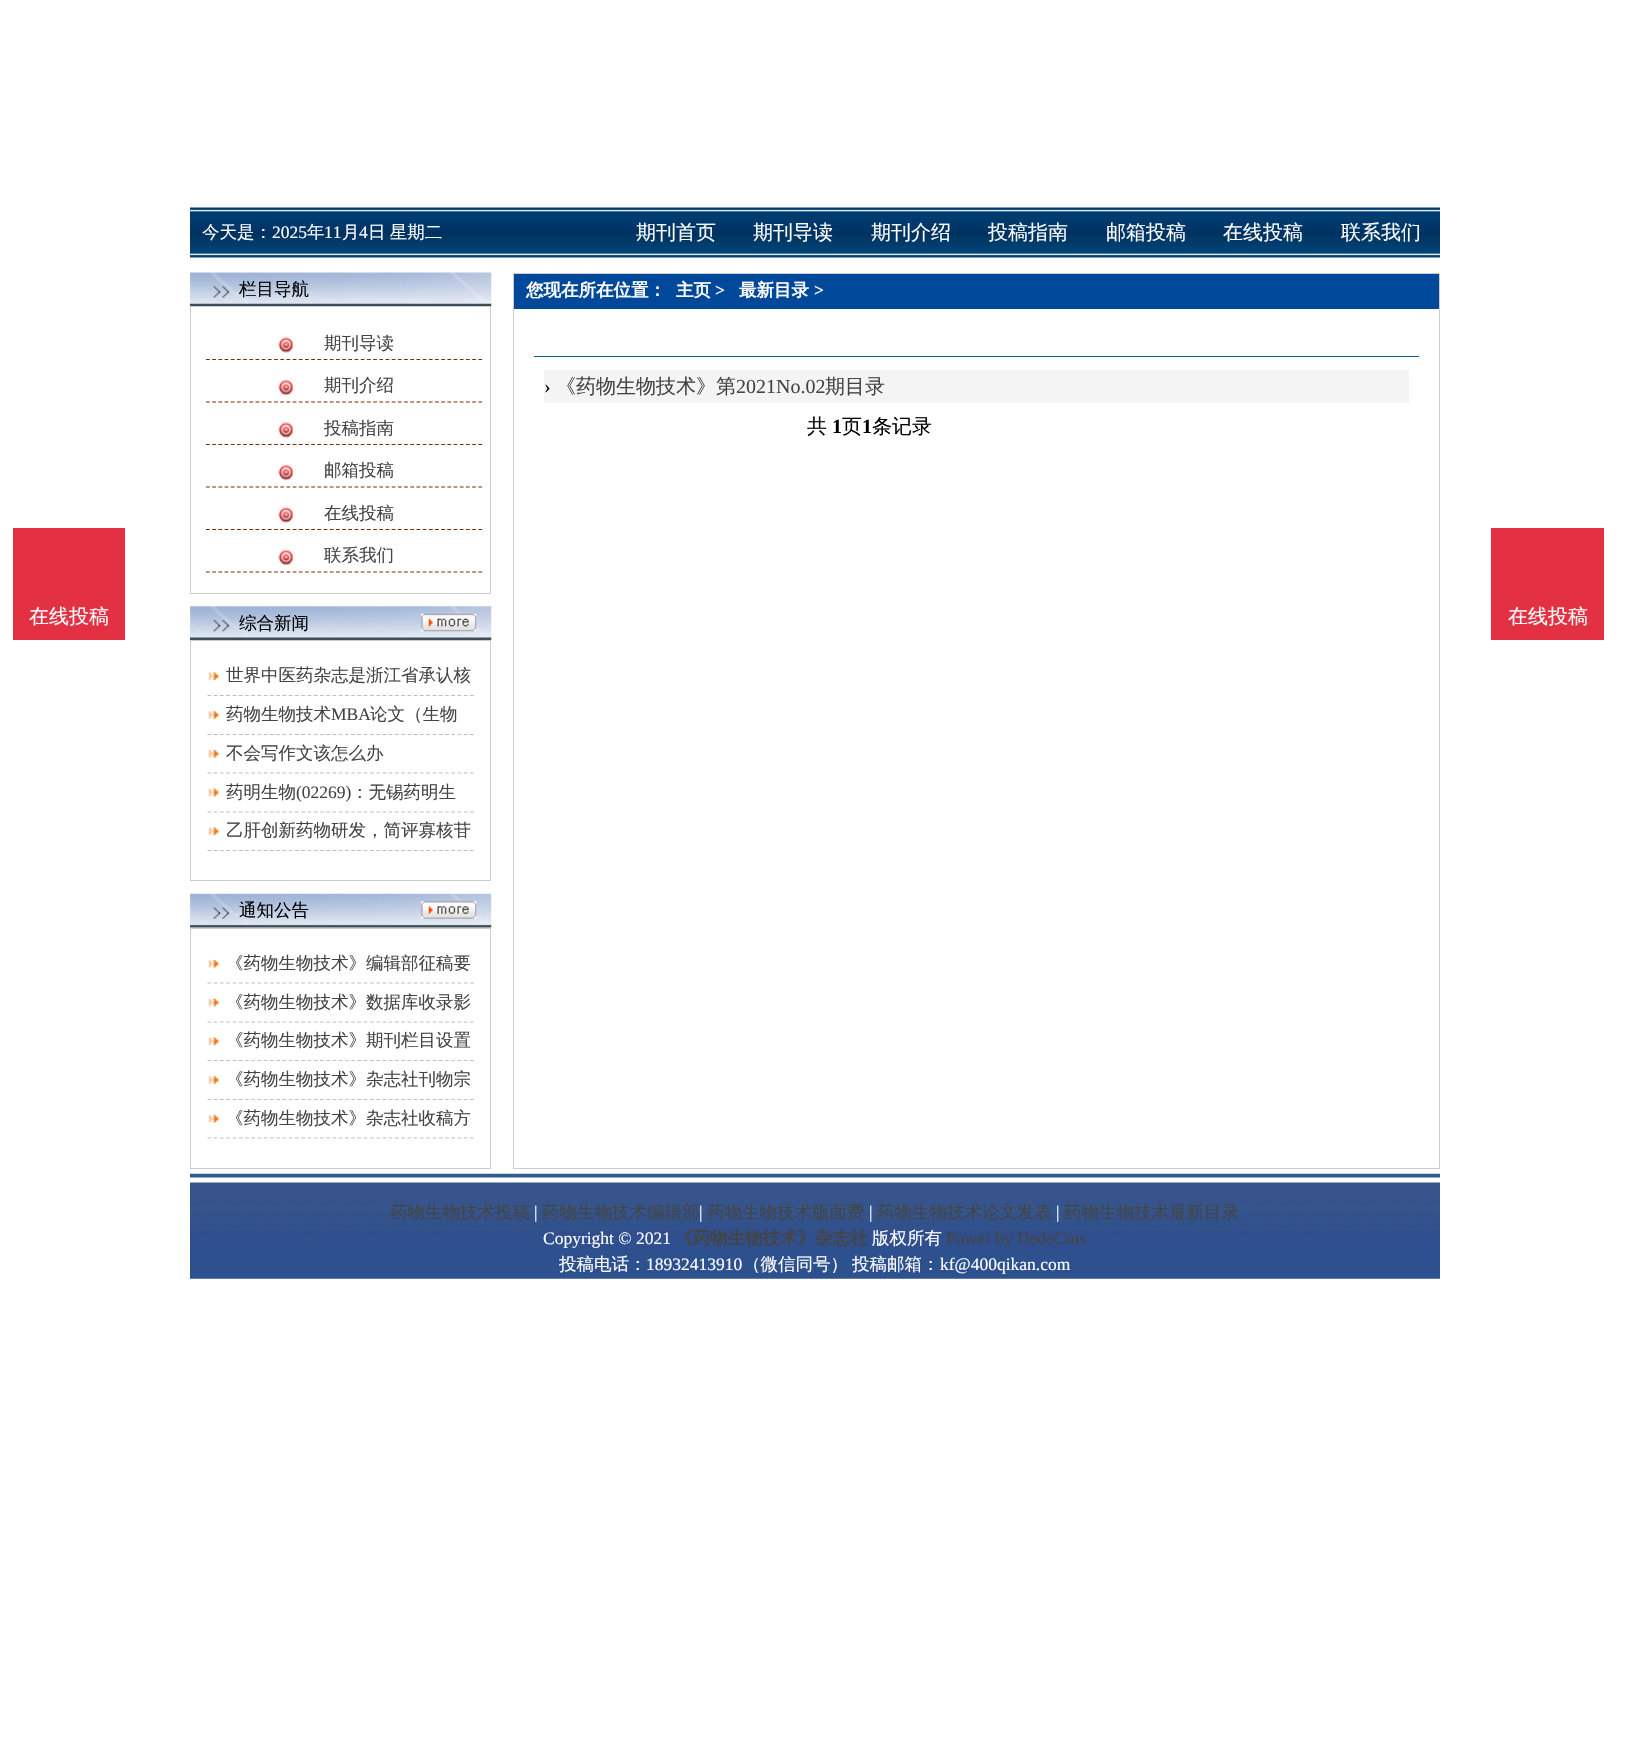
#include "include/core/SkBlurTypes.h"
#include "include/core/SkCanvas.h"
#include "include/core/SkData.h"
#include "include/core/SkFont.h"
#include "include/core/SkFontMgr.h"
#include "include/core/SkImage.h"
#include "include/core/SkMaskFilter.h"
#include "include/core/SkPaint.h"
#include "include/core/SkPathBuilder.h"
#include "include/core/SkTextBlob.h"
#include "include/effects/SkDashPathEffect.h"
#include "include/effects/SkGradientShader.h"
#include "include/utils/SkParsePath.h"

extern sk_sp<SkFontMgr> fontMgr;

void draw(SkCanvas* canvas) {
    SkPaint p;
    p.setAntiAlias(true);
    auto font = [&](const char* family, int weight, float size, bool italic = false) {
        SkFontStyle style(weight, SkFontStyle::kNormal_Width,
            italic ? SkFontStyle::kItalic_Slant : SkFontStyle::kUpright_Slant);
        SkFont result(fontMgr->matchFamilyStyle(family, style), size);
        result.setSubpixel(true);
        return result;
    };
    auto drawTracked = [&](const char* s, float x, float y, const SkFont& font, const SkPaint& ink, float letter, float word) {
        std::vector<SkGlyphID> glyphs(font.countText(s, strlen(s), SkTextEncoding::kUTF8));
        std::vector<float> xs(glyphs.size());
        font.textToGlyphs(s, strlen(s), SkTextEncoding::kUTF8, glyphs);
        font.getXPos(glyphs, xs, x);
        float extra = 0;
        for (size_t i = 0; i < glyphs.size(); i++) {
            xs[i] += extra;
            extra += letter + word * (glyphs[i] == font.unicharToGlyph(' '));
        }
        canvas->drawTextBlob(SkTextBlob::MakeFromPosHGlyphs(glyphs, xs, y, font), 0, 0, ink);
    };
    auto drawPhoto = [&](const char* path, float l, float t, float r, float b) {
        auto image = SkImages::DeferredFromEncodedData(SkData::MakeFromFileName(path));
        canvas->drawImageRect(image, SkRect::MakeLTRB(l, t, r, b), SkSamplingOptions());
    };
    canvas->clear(0xFFFFFFFF);
    drawPhoto("media/1.png", 190, 207, 1440, 258);
    auto font1 = font("WenQuanYi Zen Hei", 500, 17.5f);
    p.setColor(0xFFFFFFFF);
    canvas->drawString("今天是：", 202, 238, font1, p);
    auto font2 = font("Liberation Serif", 400, 17.5f);
    canvas->drawString("2025", 272, 238, font2, p);
    canvas->drawString("年", 307, 238, font1, p);
    canvas->drawString("11", 324, 238, font2, p);
    canvas->drawString("月", 342, 238, font1, p);
    canvas->drawString("4", 359, 238, font2, p);
    drawTracked("日 星期二", 368, 238, font1, p, 0, -1);
    auto font3 = font("WenQuanYi Zen Hei", 500, 20);
    {
        const struct { const char* s; float x, y; } items[] = {
            {"期刊首页", 636, 239},
            {"期刊导读", 753, 239},
            {"期刊介绍", 871, 239},
            {"投稿指南", 988, 239},
            {"邮箱投稿", 1106, 239},
            {"在线投稿", 1223, 239},
            {"联系我们", 1341, 239},
        };
        for (auto [s, x, y] : items) {
            canvas->drawString(s, x, y, font3, p);
        }
    }
    p.setColor(0xFFE33043);
    canvas->drawRect(SkRect::MakeLTRB(13, 528, 125, 640), p);
    p.setColor(0xFFFFFFFF);
    canvas->drawString("在线投稿", 29, 623, font3, p);
    drawPhoto("media/2.png", 190, 272, 492, 307);
    p.setColor(0xFF000000);
    canvas->drawString("栏目导航", 239, 295, font1, p);
    p.setStyle(SkPaint::kStroke_Style);
    p.setStrokeWidth(1);
    p.setColor(0xFFCCCCCC);
    canvas->drawRect(SkRect::MakeLTRB(190.5f, 306.5f, 490.5f, 593.5f), p);
    drawPhoto("media/3.png", 278, 337, 293, 353);
    p.setStrokeWidth(1.2f);
    p.setColor(0xFF7C2A09);
    p.setPathEffect(SkDashPathEffect::Make({{3.75f, 2.44f}}, 0));
    canvas->drawPath(SkPathBuilder().moveTo(206, 359.5f).lineTo(482.5f, 359.5f).detach(), p);
    p.setPathEffect(nullptr);
    p.setStyle(SkPaint::kFill_Style);
    p.setColor(0xFF444444);
    canvas->drawString("期刊导读", 324, 349, font1, p);
    drawPhoto("media/4.png", 278, 379, 293, 396);
    p.setStyle(SkPaint::kStroke_Style);
    p.setColor(0xFF7C2A09);
    p.setPathEffect(SkDashPathEffect::Make({{3.75f, 2.44f}}, 0));
    canvas->drawPath(SkPathBuilder().moveTo(206, 402).lineTo(482.5f, 402).detach(), p);
    p.setPathEffect(nullptr);
    p.setStyle(SkPaint::kFill_Style);
    p.setColor(0xFF444444);
    canvas->drawString("期刊介绍", 324, 391, font1, p);
    drawPhoto("media/3.png", 278, 422, 293, 438);
    p.setStyle(SkPaint::kStroke_Style);
    p.setColor(0xFF7C2A09);
    p.setPathEffect(SkDashPathEffect::Make({{3.75f, 2.44f}}, 0));
    canvas->drawPath(SkPathBuilder().moveTo(206, 444.5f).lineTo(482.5f, 444.5f).detach(), p);
    p.setPathEffect(nullptr);
    p.setStyle(SkPaint::kFill_Style);
    p.setColor(0xFF444444);
    canvas->drawString("投稿指南", 324, 434, font1, p);
    drawPhoto("media/4.png", 278, 464, 293, 481);
    p.setStyle(SkPaint::kStroke_Style);
    p.setColor(0xFF7C2A09);
    p.setPathEffect(SkDashPathEffect::Make({{3.75f, 2.44f}}, 0));
    canvas->drawPath(SkPathBuilder().moveTo(206, 487).lineTo(482.5f, 487).detach(), p);
    p.setPathEffect(nullptr);
    p.setStyle(SkPaint::kFill_Style);
    p.setColor(0xFF444444);
    canvas->drawString("邮箱投稿", 324, 476, font1, p);
    drawPhoto("media/3.png", 278, 507, 293, 523);
    p.setStyle(SkPaint::kStroke_Style);
    p.setColor(0xFF7C2A09);
    p.setPathEffect(SkDashPathEffect::Make({{3.75f, 2.44f}}, 0));
    canvas->drawPath(SkPathBuilder().moveTo(206, 529.5f).lineTo(482.5f, 529.5f).detach(), p);
    p.setPathEffect(nullptr);
    p.setStyle(SkPaint::kFill_Style);
    p.setColor(0xFF444444);
    canvas->drawString("在线投稿", 324, 519, font1, p);
    drawPhoto("media/4.png", 278, 549, 293, 566);
    p.setStyle(SkPaint::kStroke_Style);
    p.setColor(0xFF7C2A09);
    p.setPathEffect(SkDashPathEffect::Make({{3.75f, 2.44f}}, 0));
    canvas->drawPath(SkPathBuilder().moveTo(206, 572).lineTo(482.5f, 572).detach(), p);
    p.setPathEffect(nullptr);
    p.setStyle(SkPaint::kFill_Style);
    p.setColor(0xFF444444);
    canvas->drawString("联系我们", 324, 561, font1, p);
    drawPhoto("media/5.png", 190, 606, 492, 640);
    p.setColor(0xFF000000);
    canvas->drawString("综合新闻", 239, 629, font1, p);
    drawPhoto("media/6.png", 421, 613, 477, 632);
    p.setStyle(SkPaint::kStroke_Style);
    p.setStrokeWidth(1);
    p.setColor(0xFFCCCCCC);
    canvas->drawRect(SkRect::MakeLTRB(190.5f, 640.5f, 490.5f, 880.5f), p);
    drawPhoto("media/7.png", 208, 672, 219, 681);
    p.setStrokeWidth(1.2f);
    p.setColor(0xFFBFBFBF);
    p.setPathEffect(SkDashPathEffect::Make({{3.75f, 2.5f}}, 0));
    canvas->drawPath(SkPathBuilder().moveTo(207.5f, 695.5f).lineTo(474, 695.5f).detach(), p);
    p.setPathEffect(nullptr);
    p.setStyle(SkPaint::kFill_Style);
    p.setColor(0xFF444444);
    canvas->drawString("世界中医药杂志是浙江省承认核", 226, 681, font1, p);
    drawPhoto("media/8.png", 208, 711, 219, 719);
    p.setStyle(SkPaint::kStroke_Style);
    p.setColor(0xFFBFBFBF);
    p.setPathEffect(SkDashPathEffect::Make({{3.75f, 2.5f}}, 0));
    canvas->drawPath(SkPathBuilder().moveTo(207.5f, 734.5f).lineTo(474, 734.5f).detach(), p);
    p.setPathEffect(nullptr);
    p.setStyle(SkPaint::kFill_Style);
    p.setColor(0xFF444444);
    canvas->drawString("药物生物技术", 226, 720, font1, p);
    canvas->drawString("MBA", 331, 720, font2, p);
    canvas->drawString("论文（生物", 370, 720, font1, p);
    drawPhoto("media/9.png", 208, 749, 219, 758);
    p.setStyle(SkPaint::kStroke_Style);
    p.setColor(0xFFBFBFBF);
    p.setPathEffect(SkDashPathEffect::Make({{3.75f, 2.5f}}, 0));
    canvas->drawPath(SkPathBuilder().moveTo(207.5f, 773).lineTo(474, 773).detach(), p);
    p.setPathEffect(nullptr);
    p.setStyle(SkPaint::kFill_Style);
    p.setColor(0xFF444444);
    canvas->drawString("不会写作文该怎么办", 226, 759, font1, p);
    drawPhoto("media/10.png", 208, 788, 219, 797);
    p.setStyle(SkPaint::kStroke_Style);
    p.setColor(0xFFBFBFBF);
    p.setPathEffect(SkDashPathEffect::Make({{3.75f, 2.5f}}, 0));
    canvas->drawPath(SkPathBuilder().moveTo(207.5f, 812).lineTo(474, 812).detach(), p);
    p.setPathEffect(nullptr);
    p.setStyle(SkPaint::kFill_Style);
    p.setColor(0xFF444444);
    canvas->drawString("药明生物", 226, 798, font1, p);
    canvas->drawString("(02269)", 296, 798, font2, p);
    canvas->drawString("：无锡药明生", 351, 798, font1, p);
    drawPhoto("media/7.png", 208, 827, 219, 836);
    p.setStyle(SkPaint::kStroke_Style);
    p.setColor(0xFFBFBFBF);
    p.setPathEffect(SkDashPathEffect::Make({{3.75f, 2.5f}}, 0));
    canvas->drawPath(SkPathBuilder().moveTo(207.5f, 850.5f).lineTo(474, 850.5f).detach(), p);
    p.setPathEffect(nullptr);
    p.setStyle(SkPaint::kFill_Style);
    p.setColor(0xFF444444);
    canvas->drawString("乙肝创新药物研发，简评寡核苷", 226, 836, font1, p);
    drawPhoto("media/11.png", 190, 893, 492, 928);
    p.setColor(0xFF000000);
    canvas->drawString("通知公告", 239, 916, font1, p);
    drawPhoto("media/12.png", 421, 901, 477, 919);
    p.setStyle(SkPaint::kStroke_Style);
    p.setStrokeWidth(1);
    p.setColor(0xFFCCCCCC);
    canvas->drawRect(SkRect::MakeLTRB(190.5f, 928.5f, 490.5f, 1168.5f), p);
    drawPhoto("media/9.png", 208, 959, 219, 968);
    p.setStrokeWidth(1.2f);
    p.setColor(0xFFBFBFBF);
    p.setPathEffect(SkDashPathEffect::Make({{3.75f, 2.5f}}, 0));
    canvas->drawPath(SkPathBuilder().moveTo(207.5f, 983).lineTo(474, 983).detach(), p);
    p.setPathEffect(nullptr);
    p.setStyle(SkPaint::kFill_Style);
    p.setColor(0xFF444444);
    canvas->drawString("《药物生物技术》编辑部征稿要", 226, 969, font1, p);
    drawPhoto("media/10.png", 208, 998, 219, 1007);
    p.setStyle(SkPaint::kStroke_Style);
    p.setColor(0xFFBFBFBF);
    p.setPathEffect(SkDashPathEffect::Make({{3.75f, 2.5f}}, 0));
    canvas->drawPath(SkPathBuilder().moveTo(207.5f, 1022).lineTo(474, 1022).detach(), p);
    p.setPathEffect(nullptr);
    p.setStyle(SkPaint::kFill_Style);
    p.setColor(0xFF444444);
    canvas->drawString("《药物生物技术》数据库收录影", 226, 1008, font1, p);
    drawPhoto("media/7.png", 208, 1037, 219, 1046);
    p.setStyle(SkPaint::kStroke_Style);
    p.setColor(0xFFBFBFBF);
    p.setPathEffect(SkDashPathEffect::Make({{3.75f, 2.5f}}, 0));
    canvas->drawPath(SkPathBuilder().moveTo(207.5f, 1060.5f).lineTo(474, 1060.5f).detach(), p);
    p.setPathEffect(nullptr);
    p.setStyle(SkPaint::kFill_Style);
    p.setColor(0xFF444444);
    canvas->drawString("《药物生物技术》期刊栏目设置", 226, 1046, font1, p);
    drawPhoto("media/8.png", 208, 1076, 219, 1084);
    p.setStyle(SkPaint::kStroke_Style);
    p.setColor(0xFFBFBFBF);
    p.setPathEffect(SkDashPathEffect::Make({{3.75f, 2.5f}}, 0));
    canvas->drawPath(SkPathBuilder().moveTo(207.5f, 1099.5f).lineTo(474, 1099.5f).detach(), p);
    p.setPathEffect(nullptr);
    p.setStyle(SkPaint::kFill_Style);
    p.setColor(0xFF444444);
    canvas->drawString("《药物生物技术》杂志社刊物宗", 226, 1085, font1, p);
    drawPhoto("media/9.png", 208, 1114, 219, 1123);
    p.setStyle(SkPaint::kStroke_Style);
    p.setColor(0xFFBFBFBF);
    p.setPathEffect(SkDashPathEffect::Make({{3.75f, 2.5f}}, 0));
    canvas->drawPath(SkPathBuilder().moveTo(207.5f, 1138).lineTo(474, 1138).detach(), p);
    p.setPathEffect(nullptr);
    p.setStyle(SkPaint::kFill_Style);
    p.setColor(0xFF444444);
    canvas->drawString("《药物生物技术》杂志社收稿方", 226, 1124, font1, p);
    p.setStyle(SkPaint::kStroke_Style);
    p.setStrokeWidth(1);
    p.setColor(0xFFCCCCCC);
    canvas->drawRect(SkRect::MakeLTRB(513.5f, 273.5f, 1439.5f, 1168.5f), p);
    p.setStyle(SkPaint::kFill_Style);
    p.setColor(0xFF00489A);
    canvas->drawRect(SkRect::MakeLTRB(514, 274, 1439, 309), p);
    auto font4 = font("WenQuanYi Zen Hei", 700, 17.5f);
    p.setColor(0xFFFFFFFF);
    canvas->drawString("您现在所在位置：", 526, 296, font4, p);
    canvas->drawString("主页", 676, 296, font4, p);
    auto font5 = font("Liberation Serif", 700, 17.5f);
    canvas->drawString(">", 715, 296, font5, p);
    canvas->drawString("最新目录", 739, 296, font4, p);
    canvas->drawString(">", 814, 296, font5, p);
    p.setColor(0xFF105C95);
    canvas->drawRect(SkRect::MakeLTRB(534, 356, 1419, 357), p);
    p.setColor(0xFFF4F4F4);
    canvas->drawRect(SkRect::MakeLTRB(544, 370, 1409, 403), p);
    auto font6 = font("Liberation Serif", 400, 20);
    p.setColor(0xFF000000);
    canvas->drawString("›", 544, 393, font6, p);
    p.setColor(0xFF444444);
    canvas->drawString("《药物生物技术》第", 556, 393, font3, p);
    canvas->drawString("2021No.02", 736, 393, font6, p);
    canvas->drawString("期目录", 825, 393, font3, p);
    p.setColor(0xFF000000);
    canvas->drawString("共", 807, 433, font3, p);
    auto font7 = font("Liberation Serif", 700, 20);
    canvas->drawString("1", 832, 433, font7, p);
    canvas->drawString("页", 842, 433, font3, p);
    canvas->drawString("1", 862, 433, font7, p);
    canvas->drawString("条记录", 872, 433, font3, p);
    p.setColor(0xFFE33043);
    canvas->drawRect(SkRect::MakeLTRB(1491, 528, 1604, 640), p);
    p.setColor(0xFFFFFFFF);
    canvas->drawString("在线投稿", 1508, 623, font3, p);
    drawPhoto("media/13.png", 190, 1173, 1440, 1279);
    p.setColor(0xFF444444);
    canvas->drawString("药物生物技术投稿", 390, 1218, font1, p);
    p.setColor(0xFFFFFFFF);
    canvas->drawString("|", 534, 1218, font2, p);
    p.setColor(0xFF444444);
    canvas->drawString("药物生物技术编辑部", 542, 1218, font1, p);
    p.setColor(0xFFFFFFFF);
    canvas->drawString("|", 699, 1218, font2, p);
    p.setColor(0xFF444444);
    canvas->drawString("药物生物技术版面费", 707, 1218, font1, p);
    p.setColor(0xFFFFFFFF);
    canvas->drawString("|", 869, 1218, font2, p);
    p.setColor(0xFF444444);
    canvas->drawString("药物生物技术论文发表", 877, 1218, font1, p);
    p.setColor(0xFFFFFFFF);
    canvas->drawString("|", 1056, 1218, font2, p);
    p.setColor(0xFF444444);
    canvas->drawString("药物生物技术最新目录", 1064, 1218, font1, p);
    p.setColor(0xFFFFFFFF);
    canvas->drawString("Copyright © 2021", 543, 1244, font2, p);
    p.setColor(0xFF444444);
    canvas->drawString("《药物生物技术》杂志社", 675, 1244, font4, p);
    p.setColor(0xFFFFFFFF);
    canvas->drawString("版权所有", 872, 1244, font1, p);
    p.setColor(0xFF444444);
    canvas->drawString("Power by DedeCms", 946, 1244, font2, p);
    p.setColor(0xFFFFFFFF);
    canvas->drawString("投稿电话：", 559, 1270, font1, p);
    canvas->drawString("18932413910", 646, 1270, font2, p);
    canvas->drawString("（微信同号）", 743, 1270, font1, p);
    canvas->drawString("投稿邮箱：", 852, 1270, font1, p);
    canvas->drawString("kf@400qikan.com", 940, 1270, font2, p);
}
